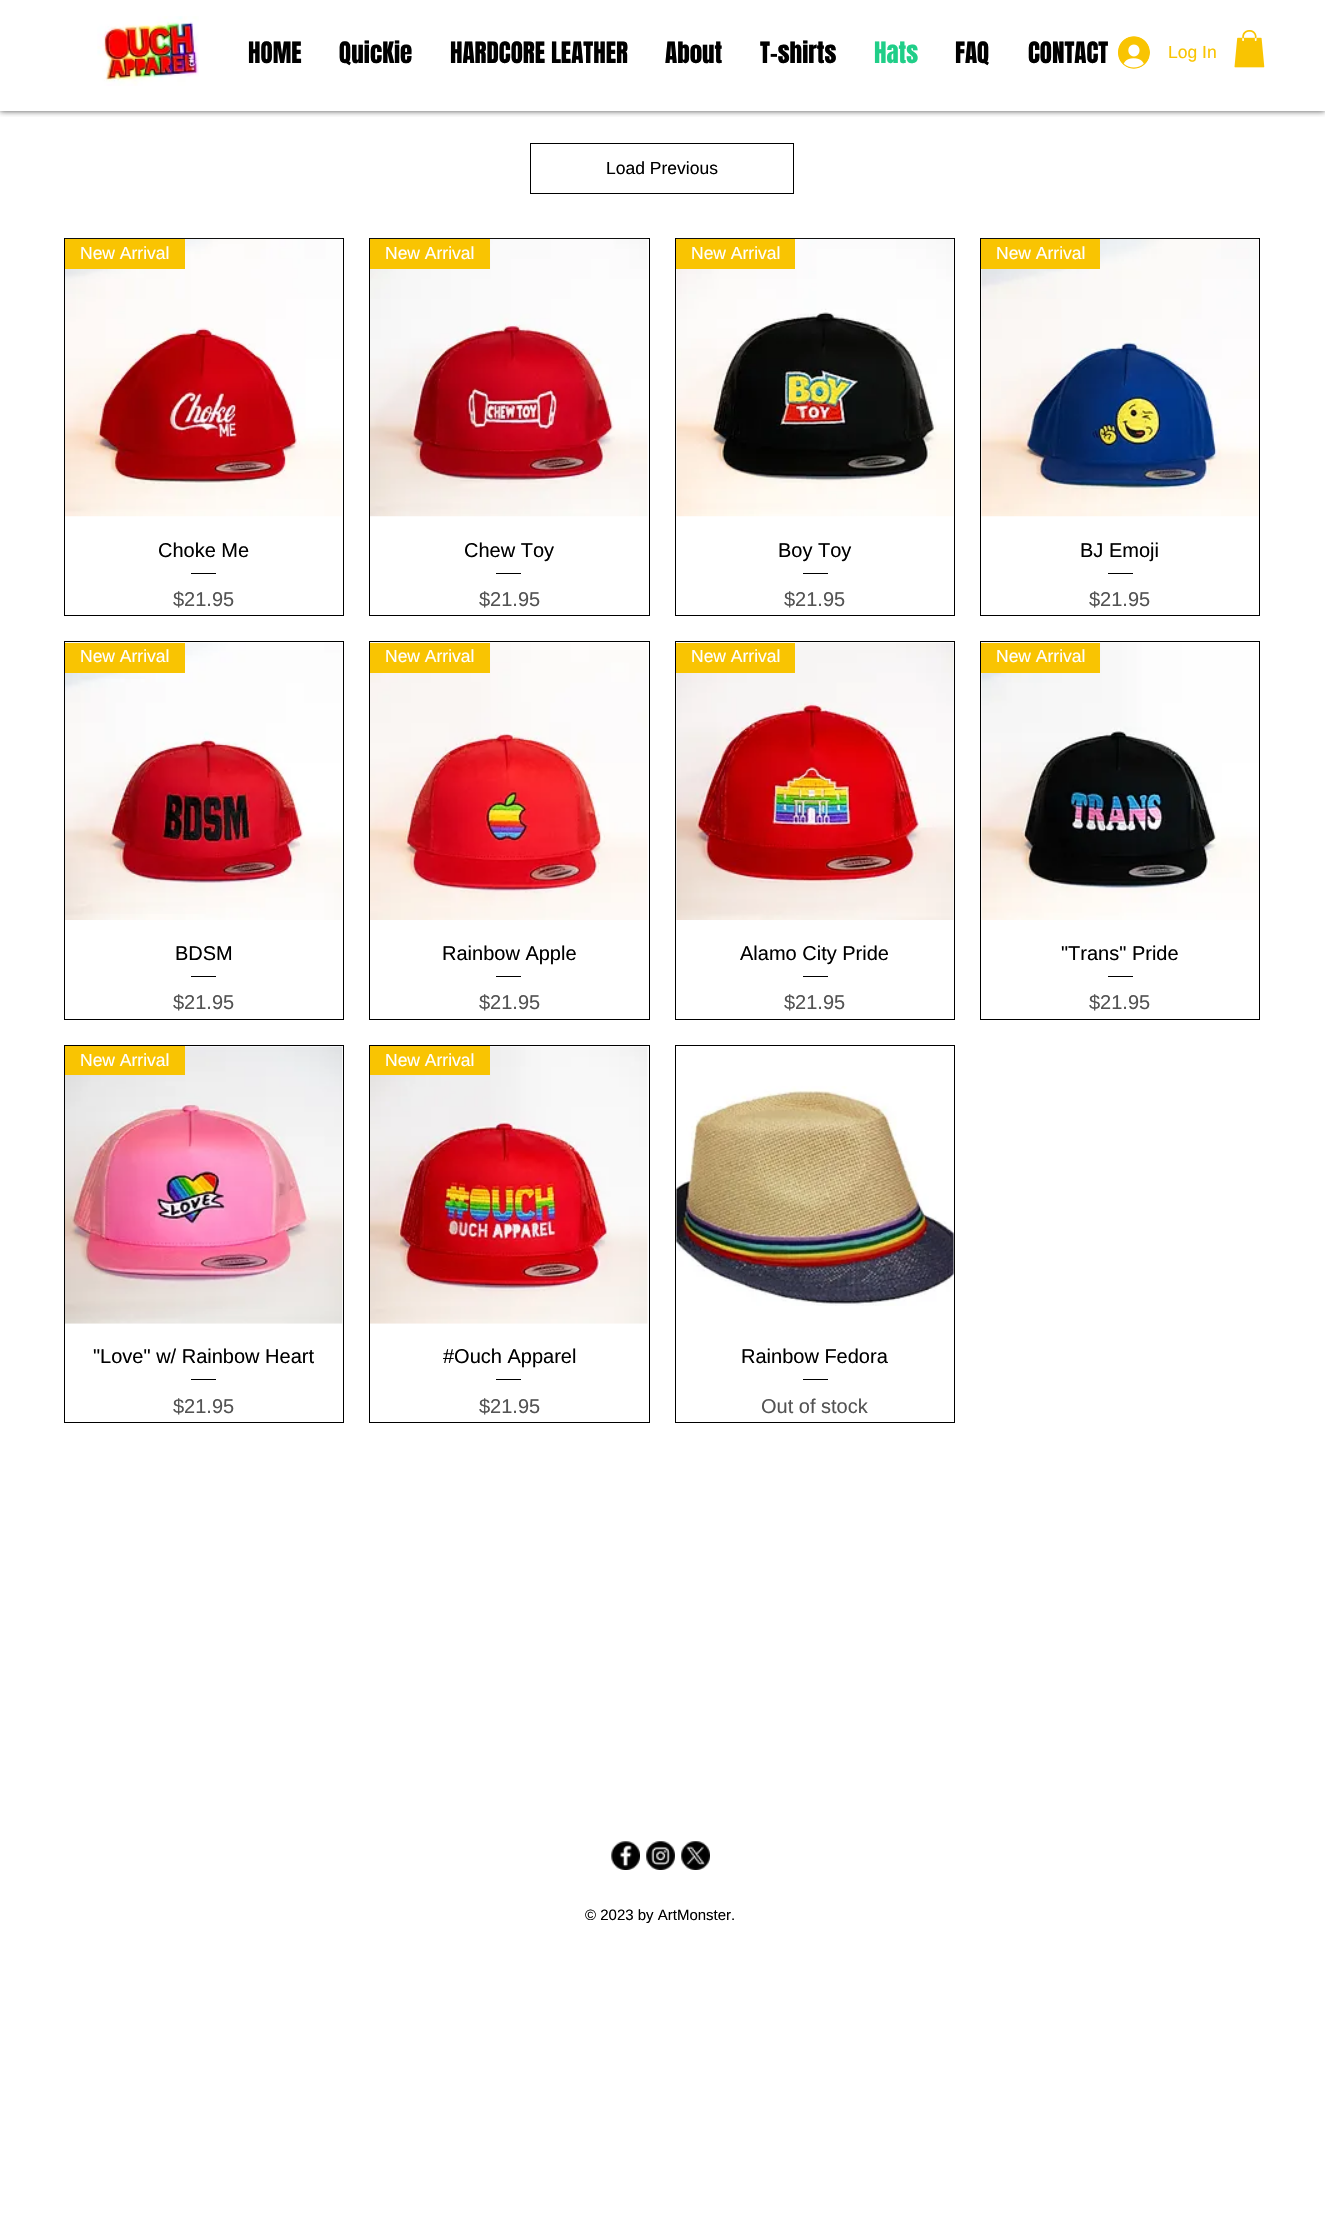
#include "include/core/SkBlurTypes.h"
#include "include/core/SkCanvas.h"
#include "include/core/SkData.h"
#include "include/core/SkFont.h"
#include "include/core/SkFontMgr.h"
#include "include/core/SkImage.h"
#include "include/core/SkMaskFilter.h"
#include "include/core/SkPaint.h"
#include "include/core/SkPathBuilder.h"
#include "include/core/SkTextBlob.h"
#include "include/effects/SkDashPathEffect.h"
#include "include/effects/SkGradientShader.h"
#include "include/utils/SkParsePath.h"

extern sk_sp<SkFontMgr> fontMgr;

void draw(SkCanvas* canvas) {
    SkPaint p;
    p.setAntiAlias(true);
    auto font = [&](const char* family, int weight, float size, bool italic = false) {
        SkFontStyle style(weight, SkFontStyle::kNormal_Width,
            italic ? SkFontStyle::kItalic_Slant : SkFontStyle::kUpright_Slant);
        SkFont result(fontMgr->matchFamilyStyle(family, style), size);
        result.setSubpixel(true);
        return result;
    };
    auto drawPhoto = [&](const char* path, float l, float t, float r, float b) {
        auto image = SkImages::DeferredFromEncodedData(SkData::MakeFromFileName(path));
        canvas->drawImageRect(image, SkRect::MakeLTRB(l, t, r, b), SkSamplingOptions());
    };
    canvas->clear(0xFFFFFFFF);
    canvas->save();
    canvas->clipRect(SkRect::MakeLTRB(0, 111, 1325, 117));
    p.setColor(0xB3000000);
    p.setMaskFilter(SkMaskFilter::MakeBlur(kNormal_SkBlurStyle, 3));
    canvas->drawRect(SkRect::MakeLTRB(0, 0, 1325, 111), p);
    p.setMaskFilter(nullptr);
    canvas->restore();
    drawPhoto("media/1.png", 97, 16, 199, 86);
    auto font1 = font("Anton", 400, 25);
    p.setColor(0xFF000000);
    {
        const struct { const char* s; float x, y; } items[] = {
            {"HOME", 248, 63},
            {"QuicKie", 339, 63},
            {"HARDCORE LEATHER", 450, 63},
            {"About", 665, 63},
            {"T-shirts", 760, 63},
        };
        for (auto [s, x, y] : items) {
            canvas->drawString(s, x, y, font1, p);
        }
    }
    p.setColor(0xFF20CE88);
    canvas->drawString("Hats", 874, 63, font1, p);
    p.setColor(0xFF000000);
    canvas->drawString("FAQ", 955, 63, font1, p);
    canvas->drawString("CONTACT", 1028, 63, font1, p);
    drawPhoto("media/2.png", 1118, 36, 1150, 69);
    auto font2 = font("Liberation Sans", 400, 17.5f);
    p.setColor(0xFFF9C402);
    canvas->drawString("Log In", 1168, 58, font2, p);
    drawPhoto("media/3.png", 1234, 30, 1265, 68);
    p.setStyle(SkPaint::kStroke_Style);
    p.setStrokeWidth(1);
    p.setColor(0xFF000000);
    canvas->drawRect(SkRect::MakeLTRB(530.5f, 143.5f, 793.5f, 193.5f), p);
    p.setStyle(SkPaint::kFill_Style);
    canvas->drawString("Load Previous", 606, 174, font2, p);
    p.setStyle(SkPaint::kStroke_Style);
    canvas->drawRect(SkRect::MakeLTRB(64.5f, 238.5f, 343.5f, 615.5f), p);
    drawPhoto("media/4.png", 65, 238, 342, 517);
    p.setStyle(SkPaint::kFill_Style);
    p.setColor(0xFFF9C402);
    canvas->drawRect(SkRect::MakeLTRB(65, 239, 185, 269), p);
    p.setColor(0xFFFFFFFF);
    canvas->drawString("New Arrival", 80, 259, font2, p);
    auto font3 = font("Liberation Sans", 400, 20);
    p.setColor(0xFF000000);
    canvas->drawString("Choke Me", 158, 557, font3, p);
    canvas->drawRect(SkRect::MakeLTRB(191, 573, 216, 574), p);
    p.setColor(0xFF535353);
    canvas->drawString("$21.95", 173, 606, font3, p);
    p.setStyle(SkPaint::kStroke_Style);
    p.setColor(0xFF000000);
    canvas->drawRect(SkRect::MakeLTRB(369.5f, 238.5f, 649.5f, 615.5f), p);
    drawPhoto("media/5.png", 370, 238, 648, 517);
    p.setStyle(SkPaint::kFill_Style);
    p.setColor(0xFFF9C402);
    canvas->drawRect(SkRect::MakeLTRB(370, 239, 490, 269), p);
    p.setColor(0xFFFFFFFF);
    canvas->drawString("New Arrival", 385, 259, font2, p);
    p.setColor(0xFF000000);
    canvas->drawString("Chew Toy", 464, 557, font3, p);
    canvas->drawRect(SkRect::MakeLTRB(496, 573, 521, 574), p);
    p.setColor(0xFF535353);
    canvas->drawString("$21.95", 479, 606, font3, p);
    p.setStyle(SkPaint::kStroke_Style);
    p.setColor(0xFF000000);
    canvas->drawRect(SkRect::MakeLTRB(675.5f, 238.5f, 954.5f, 615.5f), p);
    drawPhoto("media/6.png", 676, 238, 954, 517);
    p.setStyle(SkPaint::kFill_Style);
    p.setColor(0xFFF9C402);
    canvas->drawRect(SkRect::MakeLTRB(676, 239, 795, 269), p);
    p.setColor(0xFFFFFFFF);
    canvas->drawString("New Arrival", 691, 259, font2, p);
    p.setColor(0xFF000000);
    canvas->drawString("Boy Toy", 778, 557, font3, p);
    canvas->drawRect(SkRect::MakeLTRB(803, 573, 828, 574), p);
    p.setColor(0xFF535353);
    canvas->drawString("$21.95", 784, 606, font3, p);
    p.setStyle(SkPaint::kStroke_Style);
    p.setColor(0xFF000000);
    canvas->drawRect(SkRect::MakeLTRB(980.5f, 238.5f, 1259.5f, 615.5f), p);
    drawPhoto("media/7.png", 981, 238, 1259, 517);
    p.setStyle(SkPaint::kFill_Style);
    p.setColor(0xFFF9C402);
    canvas->drawRect(SkRect::MakeLTRB(981, 239, 1100, 269), p);
    p.setColor(0xFFFFFFFF);
    canvas->drawString("New Arrival", 996, 259, font2, p);
    p.setColor(0xFF000000);
    canvas->drawString("BJ Emoji", 1080, 557, font3, p);
    canvas->drawRect(SkRect::MakeLTRB(1108, 573, 1133, 574), p);
    p.setColor(0xFF535353);
    canvas->drawString("$21.95", 1089, 606, font3, p);
    p.setStyle(SkPaint::kStroke_Style);
    p.setColor(0xFF000000);
    canvas->drawRect(SkRect::MakeLTRB(64.5f, 641.5f, 343.5f, 1019.5f), p);
    drawPhoto("media/8.png", 65, 642, 342, 920);
    p.setStyle(SkPaint::kFill_Style);
    p.setColor(0xFFF9C402);
    canvas->drawRect(SkRect::MakeLTRB(65, 643, 185, 673), p);
    p.setColor(0xFFFFFFFF);
    canvas->drawString("New Arrival", 80, 662, font2, p);
    p.setColor(0xFF000000);
    canvas->drawString("BDSM", 175, 960, font3, p);
    canvas->drawRect(SkRect::MakeLTRB(191, 976, 216, 977), p);
    p.setColor(0xFF535353);
    canvas->drawString("$21.95", 173, 1009, font3, p);
    p.setStyle(SkPaint::kStroke_Style);
    p.setColor(0xFF000000);
    canvas->drawRect(SkRect::MakeLTRB(369.5f, 641.5f, 649.5f, 1019.5f), p);
    drawPhoto("media/9.png", 370, 642, 648, 920);
    p.setStyle(SkPaint::kFill_Style);
    p.setColor(0xFFF9C402);
    canvas->drawRect(SkRect::MakeLTRB(370, 643, 490, 673), p);
    p.setColor(0xFFFFFFFF);
    canvas->drawString("New Arrival", 385, 662, font2, p);
    p.setColor(0xFF000000);
    canvas->drawString("Rainbow Apple", 442, 960, font3, p);
    canvas->drawRect(SkRect::MakeLTRB(496, 976, 521, 977), p);
    p.setColor(0xFF535353);
    canvas->drawString("$21.95", 479, 1009, font3, p);
    p.setStyle(SkPaint::kStroke_Style);
    p.setColor(0xFF000000);
    canvas->drawRect(SkRect::MakeLTRB(675.5f, 641.5f, 954.5f, 1019.5f), p);
    drawPhoto("media/10.png", 676, 642, 954, 920);
    p.setStyle(SkPaint::kFill_Style);
    p.setColor(0xFFF9C402);
    canvas->drawRect(SkRect::MakeLTRB(676, 643, 795, 673), p);
    p.setColor(0xFFFFFFFF);
    canvas->drawString("New Arrival", 691, 662, font2, p);
    p.setColor(0xFF000000);
    canvas->drawString("Alamo City Pride", 740, 960, font3, p);
    canvas->drawRect(SkRect::MakeLTRB(803, 976, 828, 977), p);
    p.setColor(0xFF535353);
    canvas->drawString("$21.95", 784, 1009, font3, p);
    p.setStyle(SkPaint::kStroke_Style);
    p.setColor(0xFF000000);
    canvas->drawRect(SkRect::MakeLTRB(980.5f, 641.5f, 1259.5f, 1019.5f), p);
    drawPhoto("media/11.png", 981, 642, 1259, 920);
    p.setStyle(SkPaint::kFill_Style);
    p.setColor(0xFFF9C402);
    canvas->drawRect(SkRect::MakeLTRB(981, 643, 1100, 673), p);
    p.setColor(0xFFFFFFFF);
    canvas->drawString("New Arrival", 996, 662, font2, p);
    p.setColor(0xFF000000);
    canvas->drawString("\"Trans\" Pride", 1061, 960, font3, p);
    canvas->drawRect(SkRect::MakeLTRB(1108, 976, 1133, 977), p);
    p.setColor(0xFF535353);
    canvas->drawString("$21.95", 1089, 1009, font3, p);
    p.setStyle(SkPaint::kStroke_Style);
    p.setColor(0xFF000000);
    canvas->drawRect(SkRect::MakeLTRB(64.5f, 1045.5f, 343.5f, 1422.5f), p);
    drawPhoto("media/12.png", 65, 1046, 343, 1324);
    p.setStyle(SkPaint::kFill_Style);
    p.setColor(0xFFF9C402);
    canvas->drawRect(SkRect::MakeLTRB(65, 1046, 185, 1075), p);
    p.setColor(0xFFFFFFFF);
    canvas->drawString("New Arrival", 80, 1066, font2, p);
    p.setColor(0xFF000000);
    canvas->drawString("\"Love\" w/ Rainbow Heart", 93, 1363, font3, p);
    canvas->drawRect(SkRect::MakeLTRB(191, 1379, 216, 1380), p);
    p.setColor(0xFF535353);
    canvas->drawString("$21.95", 173, 1413, font3, p);
    p.setStyle(SkPaint::kStroke_Style);
    p.setColor(0xFF000000);
    canvas->drawRect(SkRect::MakeLTRB(369.5f, 1045.5f, 649.5f, 1422.5f), p);
    drawPhoto("media/13.png", 370, 1046, 648, 1324);
    p.setStyle(SkPaint::kFill_Style);
    p.setColor(0xFFF9C402);
    canvas->drawRect(SkRect::MakeLTRB(370, 1046, 490, 1075), p);
    p.setColor(0xFFFFFFFF);
    canvas->drawString("New Arrival", 385, 1066, font2, p);
    p.setColor(0xFF000000);
    canvas->drawString("#Ouch Apparel", 443, 1363, font3, p);
    canvas->drawRect(SkRect::MakeLTRB(496, 1379, 521, 1380), p);
    p.setColor(0xFF535353);
    canvas->drawString("$21.95", 479, 1413, font3, p);
    p.setStyle(SkPaint::kStroke_Style);
    p.setColor(0xFF000000);
    canvas->drawRect(SkRect::MakeLTRB(675.5f, 1045.5f, 954.5f, 1422.5f), p);
    drawPhoto("media/14.png", 676, 1086, 954, 1306);
    p.setStyle(SkPaint::kFill_Style);
    canvas->drawString("Rainbow Fedora", 741, 1363, font3, p);
    canvas->drawRect(SkRect::MakeLTRB(803, 1379, 828, 1380), p);
    p.setColor(0xFF535353);
    canvas->drawString("Out of stock", 761, 1413, font3, p);
    drawPhoto("media/15.png", 611, 1841, 640, 1870);
    drawPhoto("media/16.png", 646, 1841, 675, 1870);
    drawPhoto("media/17.png", 681, 1841, 710, 1870);
    auto font4 = font("Liberation Sans", 400, 15);
    p.setColor(0xFF000000);
    canvas->drawString("© 2023 by ArtMonster.", 585, 1920, font4, p);
}
